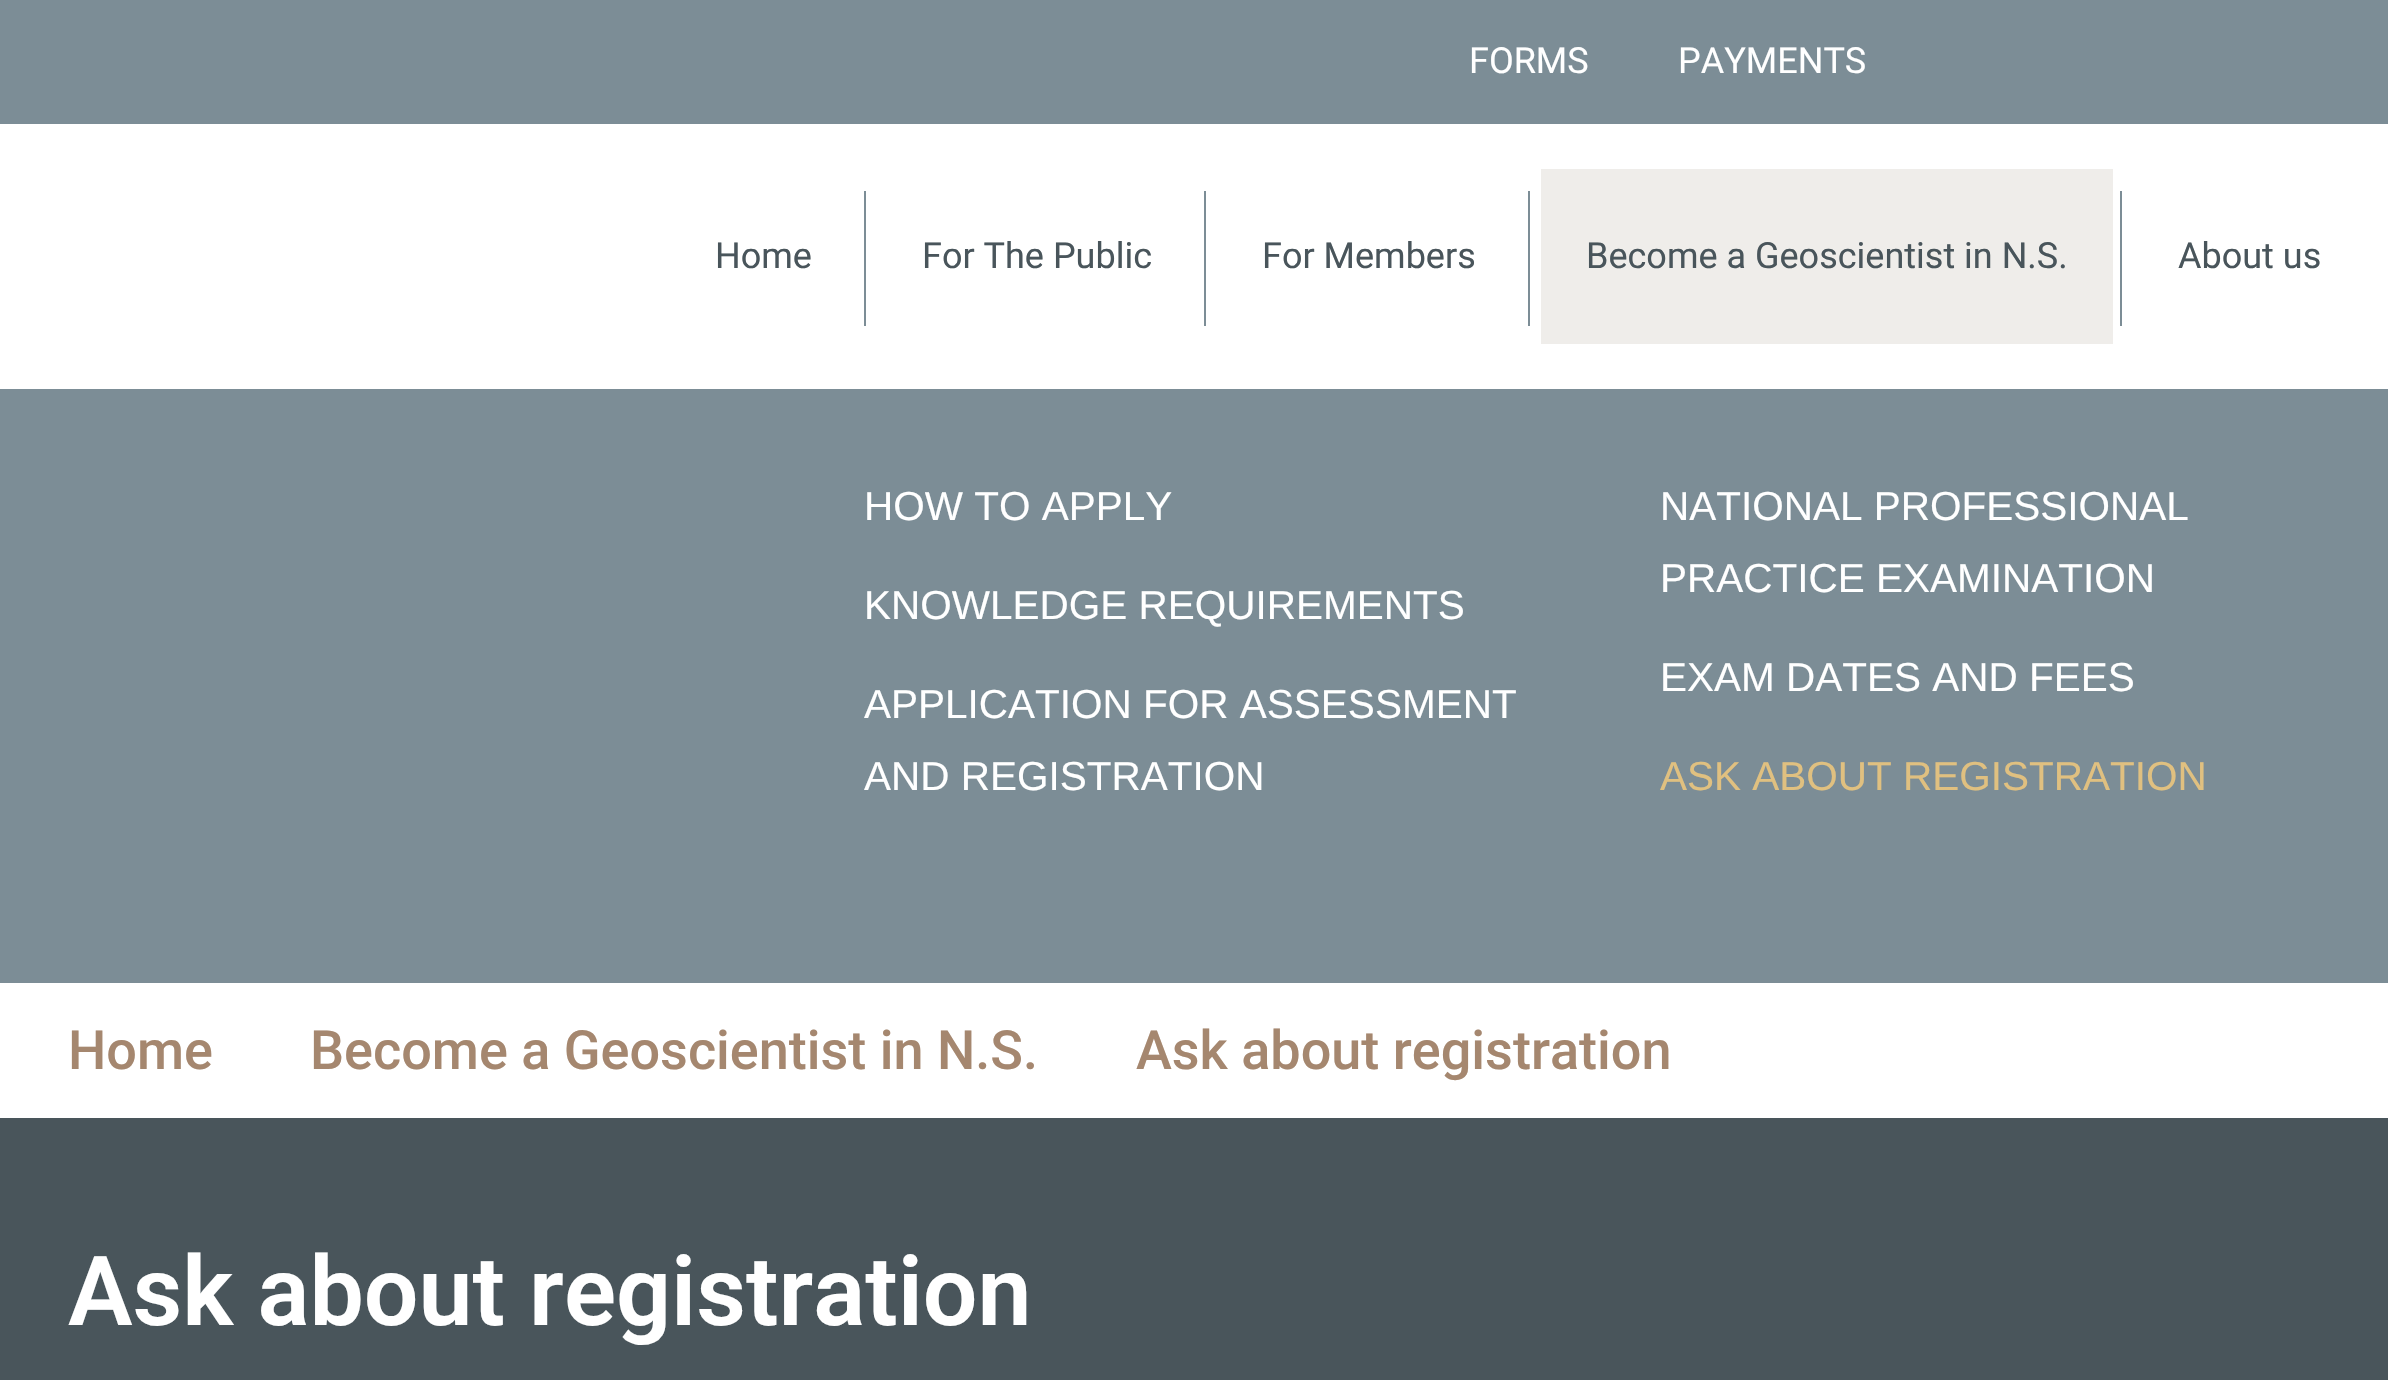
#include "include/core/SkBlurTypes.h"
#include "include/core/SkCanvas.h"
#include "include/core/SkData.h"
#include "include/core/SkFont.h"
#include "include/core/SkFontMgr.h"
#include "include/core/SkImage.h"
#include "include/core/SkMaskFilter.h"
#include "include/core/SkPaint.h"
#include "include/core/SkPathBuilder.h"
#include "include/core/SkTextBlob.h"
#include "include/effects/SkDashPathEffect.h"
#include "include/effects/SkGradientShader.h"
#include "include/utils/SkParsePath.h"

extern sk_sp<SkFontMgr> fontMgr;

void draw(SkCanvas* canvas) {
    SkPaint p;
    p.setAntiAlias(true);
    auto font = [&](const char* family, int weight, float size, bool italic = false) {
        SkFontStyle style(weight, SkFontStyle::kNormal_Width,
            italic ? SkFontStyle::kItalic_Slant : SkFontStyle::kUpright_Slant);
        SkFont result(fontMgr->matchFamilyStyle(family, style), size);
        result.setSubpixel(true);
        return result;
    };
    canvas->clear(0xFFFFFFFF);
    p.setColor(0xFF7C8D96);
    canvas->drawRect(SkRect::MakeLTRB(0, 0, 2388, 124), p);
    auto font1 = font("Roboto", 400, 36);
    p.setColor(0xFFFFFFFF);
    canvas->drawString("FORMS", 1469, 73, font1, p);
    canvas->drawString("PAYMENTS", 1678, 73, font1, p);
    p.setColor(0xFF49555B);
    canvas->drawString("Home", 715, 268, font1, p);
    p.setColor(0xFF7C8D96);
    canvas->drawRect(SkRect::MakeLTRB(864, 191, 866, 326), p);
    p.setColor(0xFF49555B);
    canvas->drawString("For The Public", 922, 268, font1, p);
    p.setColor(0xFF7C8D96);
    canvas->drawRect(SkRect::MakeLTRB(1204, 191, 1206, 326), p);
    p.setColor(0xFF49555B);
    canvas->drawString("For Members", 1262, 268, font1, p);
    p.setColor(0xFF7C8D96);
    canvas->drawRect(SkRect::MakeLTRB(1528, 191, 1530, 326), p);
    p.setColor(0xFFEFEDEA);
    canvas->drawRect(SkRect::MakeLTRB(1541, 169, 2113, 344), p);
    p.setColor(0xFF49555B);
    canvas->drawString("Become a Geoscientist in N.S.", 1586, 268, font1, p);
    p.setColor(0xFF7C8D96);
    canvas->drawRect(SkRect::MakeLTRB(2120, 191, 2122, 326), p);
    p.setColor(0xFF49555B);
    canvas->drawString("About us", 2178, 268, font1, p);
    p.setColor(0xFF7C8D96);
    canvas->drawRect(SkRect::MakeLTRB(0, 389, 2388, 983), p);
    auto font2 = font("Liberation Sans", 400, 40.5f);
    p.setColor(0xFFFFFFFF);
    {
        const struct { const char* s; float x, y; } items[] = {
            {"HOW TO APPLY", 864, 520},
            {"KNOWLEDGE REQUIREMENTS", 864, 619},
            {"APPLICATION FOR ASSESSMENT", 864, 718},
            {"AND REGISTRATION", 864, 790},
            {"NATIONAL PROFESSIONAL", 1660, 520},
            {"PRACTICE EXAMINATION", 1660, 592},
            {"EXAM DATES AND FEES", 1660, 691},
        };
        for (auto [s, x, y] : items) {
            canvas->drawString(s, x, y, font2, p);
        }
    }
    p.setColor(0xFFE0C080);
    canvas->drawString("ASK ABOUT REGISTRATION", 1660, 790, font2, p);
    auto font3 = font("Roboto", 500, 54);
    p.setColor(0xFFA5876F);
    {
        const struct { const char* s; float x, y; } items[] = {
            {"Home", 68, 1069},
            {"Become a Geoscientist in N.S.", 310, 1069},
            {"Ask about registration", 1136, 1069},
        };
        for (auto [s, x, y] : items) {
            canvas->drawString(s, x, y, font3, p);
        }
    }
    p.setColor(0xFF49555B);
    canvas->drawRect(SkRect::MakeLTRB(0, 1118, 2388, 1380), p);
    auto font4 = font("Roboto", 600, 96.75f);
    p.setColor(0xFFFFFFFF);
    canvas->drawString("Ask about registration", 68, 1325, font4, p);
}
